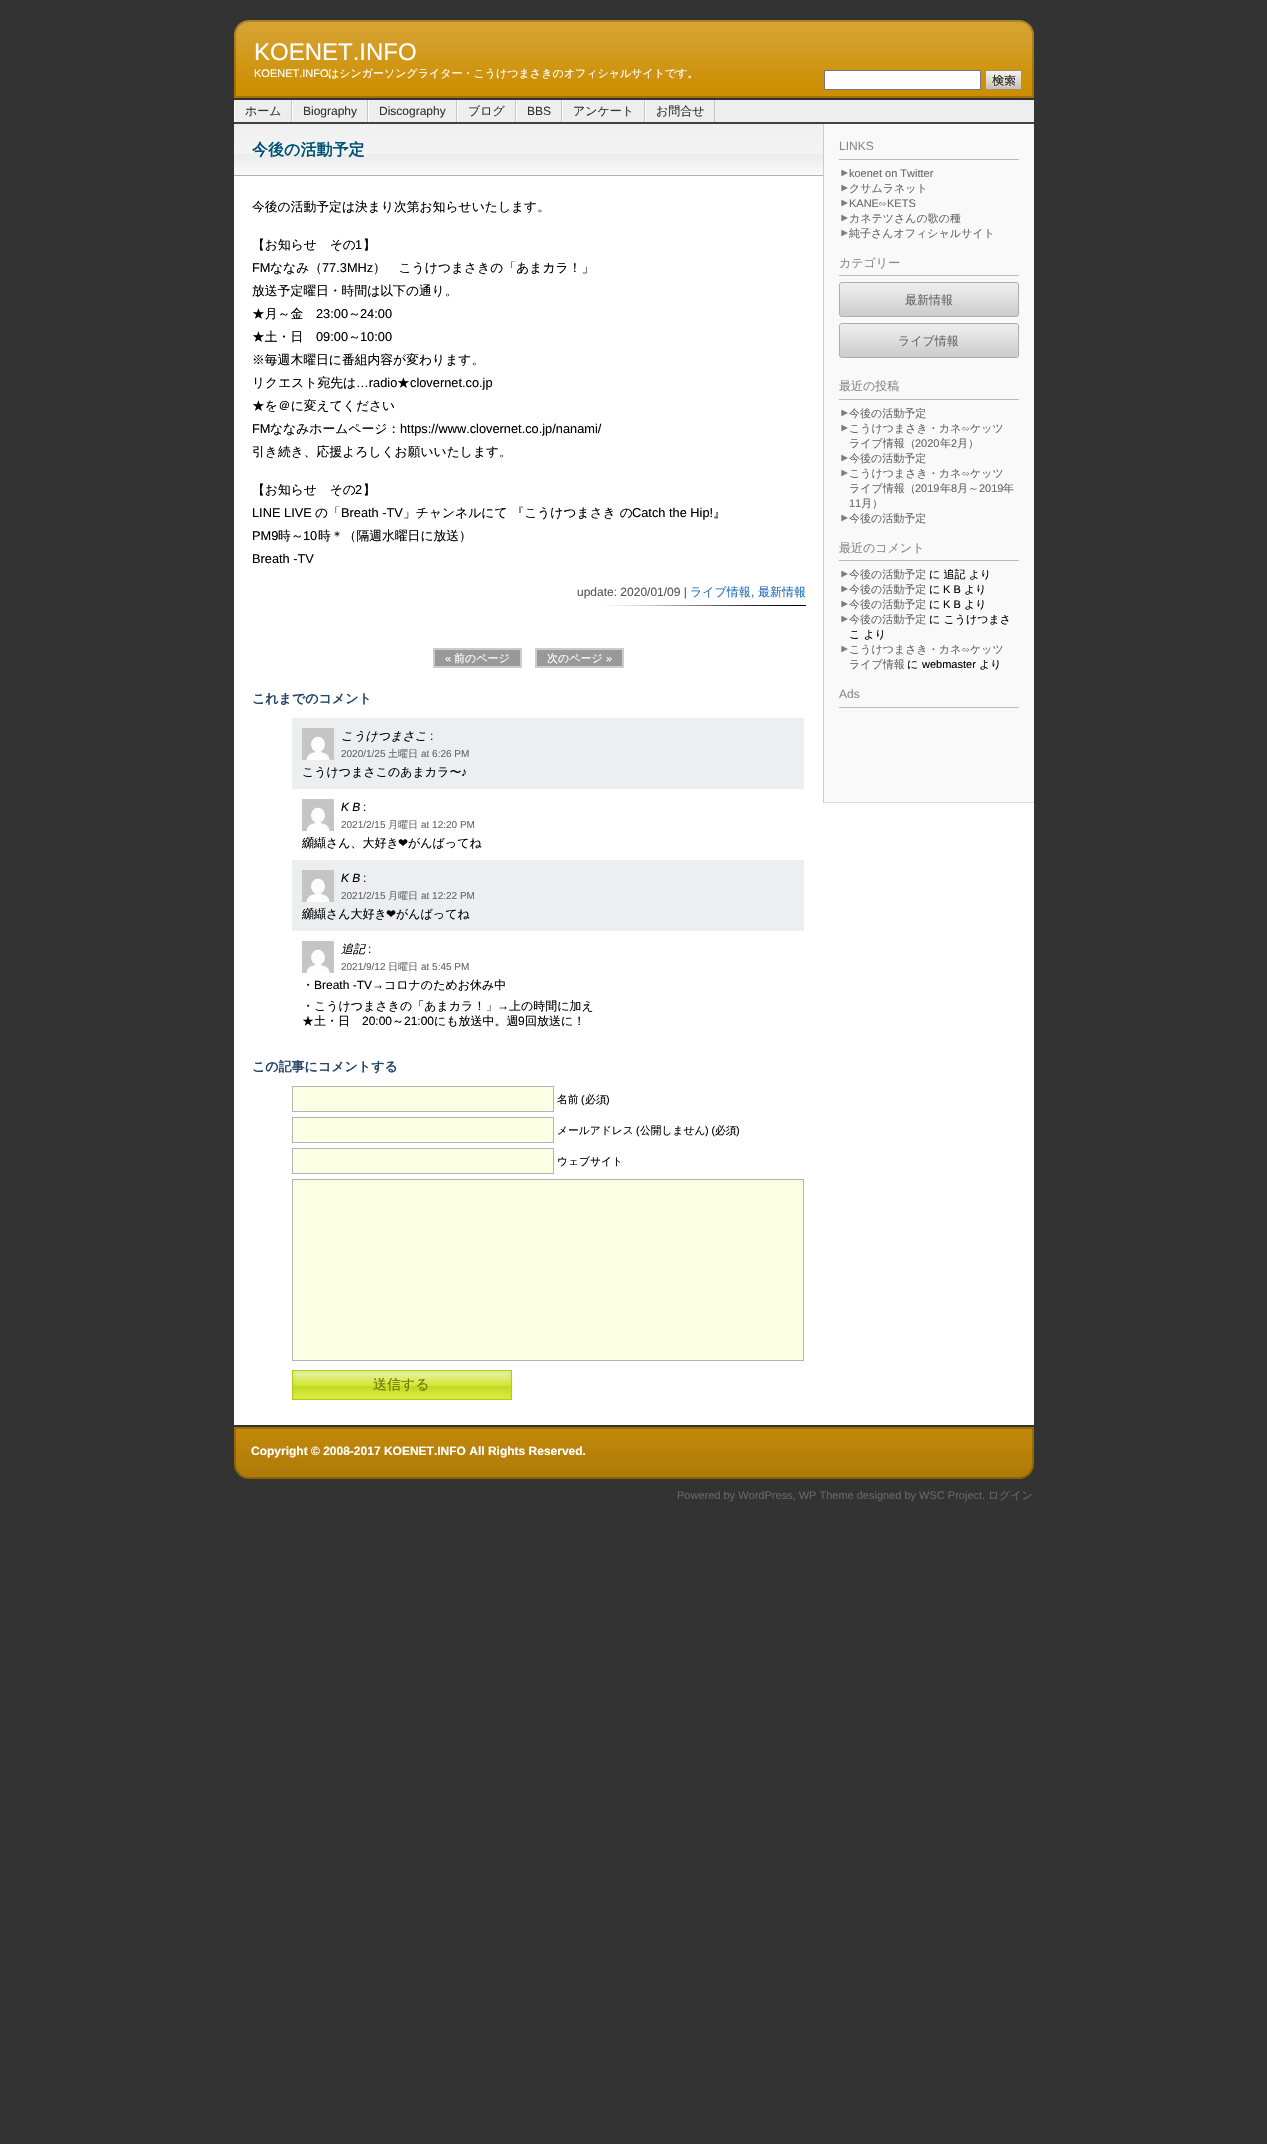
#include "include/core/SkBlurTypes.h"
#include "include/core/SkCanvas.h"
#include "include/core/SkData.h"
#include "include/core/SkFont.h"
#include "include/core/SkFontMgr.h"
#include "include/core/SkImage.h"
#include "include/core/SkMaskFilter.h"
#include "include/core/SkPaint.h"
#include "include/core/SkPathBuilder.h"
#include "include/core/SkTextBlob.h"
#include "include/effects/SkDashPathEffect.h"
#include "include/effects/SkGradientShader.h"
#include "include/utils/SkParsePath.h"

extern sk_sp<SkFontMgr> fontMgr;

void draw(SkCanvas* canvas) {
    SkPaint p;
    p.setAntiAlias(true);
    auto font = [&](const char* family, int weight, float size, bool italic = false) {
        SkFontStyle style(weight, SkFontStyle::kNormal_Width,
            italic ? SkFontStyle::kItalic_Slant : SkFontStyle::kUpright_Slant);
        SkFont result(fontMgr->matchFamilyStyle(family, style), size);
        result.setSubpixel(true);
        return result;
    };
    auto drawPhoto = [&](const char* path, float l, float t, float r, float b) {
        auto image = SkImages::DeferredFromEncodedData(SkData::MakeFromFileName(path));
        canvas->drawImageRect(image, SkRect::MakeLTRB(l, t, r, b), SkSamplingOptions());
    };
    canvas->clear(0xFF333333);
    drawPhoto("media/1.png", 234, 20, 1034, 98);
    auto font1 = font("Liberation Sans", 400, 24);
    p.setColor(0xFFFFFFFF);
    canvas->drawString("KOENET.INFO", 254, 60, font1, p);
    auto font2 = font("Liberation Sans", 400, 11);
    canvas->drawString("KOENET.INFO", 254, 77, font2, p);
    auto font3 = font("WenQuanYi Zen Hei", 500, 11);
    canvas->drawString("はシンガーソングライター・こうけつまさきのオフィシャルサイトです。", 328, 77, font3, p);
    canvas->drawRect(SkRect::MakeLTRB(824.5f, 70.5f, 980.5f, 89.5f), p);
    p.setStyle(SkPaint::kStroke_Style);
    p.setStrokeWidth(1);
    p.setColor(0xFF777777);
    canvas->drawRect(SkRect::MakeLTRB(824.5f, 70.5f, 980.5f, 89.5f), p);
    drawPhoto("media/2.png", 985, 70, 1022, 90);
    p.setStyle(SkPaint::kFill_Style);
    {
        const struct { float l, t, r, b; SkColor color; } items[] = {
            {235, 100, 1034, 122, 0xFFEEEEEE},
            {234, 122, 1034, 124, 0xFF424242},
            {291, 100, 292, 122, 0xFFC7C7C7},
            {234, 100, 235, 122, 0xFFFFFFFF},
        };
        for (auto [l, t, r, b, color] : items) {
            p.setColor(color);
            canvas->drawRect(SkRect::MakeLTRB(l, t, r, b), p);
        }
    }
    auto font4 = font("WenQuanYi Zen Hei", 500, 12);
    p.setColor(0xFF333333);
    canvas->drawString("ホーム", 245, 115, font4, p);
    p.setColor(0xFFC7C7C7);
    canvas->drawRect(SkRect::MakeLTRB(367, 100, 368, 122), p);
    p.setColor(0xFFFFFFFF);
    canvas->drawRect(SkRect::MakeLTRB(292, 100, 293, 122), p);
    auto font5 = font("Liberation Sans", 400, 12);
    p.setColor(0xFF333333);
    canvas->drawString("Biography", 303, 115, font5, p);
    p.setColor(0xFFC7C7C7);
    canvas->drawRect(SkRect::MakeLTRB(456, 100, 457, 122), p);
    p.setColor(0xFFFFFFFF);
    canvas->drawRect(SkRect::MakeLTRB(368, 100, 369, 122), p);
    p.setColor(0xFF333333);
    canvas->drawString("Discography", 379, 115, font5, p);
    p.setColor(0xFFC7C7C7);
    canvas->drawRect(SkRect::MakeLTRB(515, 100, 516, 122), p);
    p.setColor(0xFFFFFFFF);
    canvas->drawRect(SkRect::MakeLTRB(457, 100, 458, 122), p);
    p.setColor(0xFF333333);
    canvas->drawString("ブログ", 468, 115, font4, p);
    p.setColor(0xFFC7C7C7);
    canvas->drawRect(SkRect::MakeLTRB(561, 100, 562, 122), p);
    p.setColor(0xFFFFFFFF);
    canvas->drawRect(SkRect::MakeLTRB(516, 100, 517, 122), p);
    p.setColor(0xFF333333);
    canvas->drawString("BBS", 527, 115, font5, p);
    p.setColor(0xFFC7C7C7);
    canvas->drawRect(SkRect::MakeLTRB(644, 100, 645, 122), p);
    p.setColor(0xFFFFFFFF);
    canvas->drawRect(SkRect::MakeLTRB(562, 100, 563, 122), p);
    p.setColor(0xFF333333);
    canvas->drawString("アンケート", 573, 115, font4, p);
    p.setColor(0xFFC7C7C7);
    canvas->drawRect(SkRect::MakeLTRB(714, 100, 715, 122), p);
    p.setColor(0xFFFFFFFF);
    canvas->drawRect(SkRect::MakeLTRB(645, 100, 646, 122), p);
    p.setColor(0xFF333333);
    canvas->drawString("お問合せ", 656, 115, font4, p);
    p.setColor(0xFFFFFFFF);
    canvas->drawRect(SkRect::MakeLTRB(234, 176, 1034, 1425), p);
    drawPhoto("media/3.png", 234, 124, 823, 176);
    auto font6 = font("WenQuanYi Zen Hei", 700, 16);
    p.setColor(0xFF005376);
    canvas->drawString("今後の活動予定", 252, 155, font6, p);
    auto font7 = font("WenQuanYi Zen Hei", 500, 12.8f);
    p.setColor(0xFF000000);
    canvas->drawString("今後の活動予定は決まり次第お知らせいたします。", 252, 211, font7, p);
    canvas->drawString("【お知らせ　その", 252, 249, font7, p);
    auto font8 = font("Liberation Sans", 400, 12.8f);
    canvas->drawString("1", 355, 249, font8, p);
    canvas->drawString("】", 363, 249, font7, p);
    canvas->drawString("FM", 252, 272, font8, p);
    canvas->drawString("ななみ（", 270, 272, font7, p);
    canvas->drawString("77.3MHz", 322, 272, font8, p);
    {
        const struct { const char* s; float x, y; } items[] = {
            {"）　こうけつまさきの「あまカラ！」", 373, 272},
            {"放送予定曜日・時間は以下の通り。", 252, 295},
            {"★月～金", 252, 318},
        };
        for (auto [s, x, y] : items) {
            canvas->drawString(s, x, y, font7, p);
        }
    }
    canvas->drawString("23:00", 316, 318, font8, p);
    canvas->drawString("～", 348, 318, font7, p);
    canvas->drawString("24:00", 360, 318, font8, p);
    canvas->drawString("★土・日", 252, 341, font7, p);
    canvas->drawString("09:00", 316, 341, font8, p);
    canvas->drawString("～", 348, 341, font7, p);
    canvas->drawString("10:00", 360, 341, font8, p);
    canvas->drawString("※毎週木曜日に番組内容が変わります。", 252, 364, font7, p);
    canvas->drawString("リクエスト宛先は", 252, 387, font7, p);
    canvas->drawString("…radio", 356, 387, font8, p);
    canvas->drawString("★", 397, 387, font7, p);
    canvas->drawString("clovernet.co.jp", 410, 387, font8, p);
    canvas->drawString("★を＠に変えてください", 252, 410, font7, p);
    canvas->drawString("FM", 252, 433, font8, p);
    canvas->drawString("ななみホームページ：", 270, 433, font7, p);
    canvas->drawString("https://www.clovernet.co.jp/nanami/", 400, 433, font8, p);
    canvas->drawString("引き続き、応援よろしくお願いいたします。", 252, 456, font7, p);
    canvas->drawString("【お知らせ　その", 252, 494, font7, p);
    canvas->drawString("2", 355, 494, font8, p);
    canvas->drawString("】", 363, 494, font7, p);
    canvas->drawString("LINE LIVE", 252, 517, font8, p);
    canvas->drawString("の「", 315, 517, font7, p);
    canvas->drawString("Breath -TV", 341, 517, font8, p);
    canvas->drawString("」チャンネルにて 『こうけつまさき の", 403, 517, font7, p);
    canvas->drawString("Catch the Hip!", 632, 517, font8, p);
    canvas->drawString("』", 713, 517, font7, p);
    canvas->drawString("PM9", 252, 540, font8, p);
    canvas->drawString("時～", 278, 540, font7, p);
    canvas->drawString("10", 303, 540, font8, p);
    canvas->drawString("時＊（隔週水曜日に放送）", 318, 540, font7, p);
    canvas->drawString("Breath -TV", 252, 563, font8, p);
    drawPhoto("media/4.png", 604, 605, 806, 606);
    p.setColor(0xFF555555);
    canvas->drawString("update: 2020/01/09 |", 577, 596, font5, p);
    p.setColor(0xFF226DB9);
    canvas->drawString("ライブ情報", 690, 596, font4, p);
    p.setColor(0xFF555555);
    canvas->drawString(",", 751, 596, font5, p);
    p.setColor(0xFF226DB9);
    canvas->drawString("最新情報", 758, 596, font4, p);
    p.setColor(0xFF999999);
    canvas->drawRect(SkRect::MakeLTRB(434, 649, 521, 667), p);
    p.setStyle(SkPaint::kStroke_Style);
    p.setStrokeWidth(2);
    p.setColor(0xFFCCCCCC);
    canvas->drawRect(SkRect::MakeLTRB(434, 649, 521, 667), p);
    p.setStyle(SkPaint::kFill_Style);
    p.setColor(0xFFFFFFFF);
    canvas->drawString("«", 445, 662, font2, p);
    canvas->drawString("前のページ", 454, 662, font3, p);
    p.setColor(0xFF999999);
    canvas->drawRect(SkRect::MakeLTRB(536, 649, 623, 667), p);
    p.setStyle(SkPaint::kStroke_Style);
    p.setColor(0xFFCCCCCC);
    canvas->drawRect(SkRect::MakeLTRB(536, 649, 623, 667), p);
    p.setStyle(SkPaint::kFill_Style);
    p.setColor(0xFFFFFFFF);
    canvas->drawString("次のページ", 547, 662, font3, p);
    canvas->drawString("»", 606, 662, font2, p);
    auto font9 = font("WenQuanYi Zen Hei", 700, 13);
    p.setColor(0xFF224466);
    canvas->drawString("これまでのコメント", 252, 703, font9, p);
    p.setColor(0xFFECEEEF);
    canvas->drawRect(SkRect::MakeLTRB(292, 718, 804, 789), p);
    drawPhoto("media/5.png", 302, 728, 334, 760);
    auto font10 = font("WenQuanYi Zen Hei", 500, 12, true);
    p.setColor(0xFF000000);
    canvas->drawString("こうけつまさこ", 341, 740, font10, p);
    canvas->drawString(":", 430, 740, font5, p);
    auto font11 = font("Liberation Sans", 400, 10);
    p.setColor(0xFF666666);
    canvas->drawString("2020/1/25", 341, 757, font11, p);
    auto font12 = font("WenQuanYi Zen Hei", 500, 10);
    canvas->drawString("土曜日", 388, 757, font12, p);
    canvas->drawString("at 6:26 PM", 421, 757, font11, p);
    p.setColor(0xFF000000);
    canvas->drawString("こうけつまさこのあまカラ〜", 302, 776, font4, p);
    canvas->drawString("♪", 461, 776, font5, p);
    drawPhoto("media/5.png", 302, 799, 334, 831);
    auto font13 = font("Liberation Sans", 400, 12, true);
    canvas->drawString("K B", 341, 811, font13, p);
    canvas->drawString(":", 363, 811, font5, p);
    p.setColor(0xFF666666);
    canvas->drawString("2021/2/15", 341, 828, font11, p);
    canvas->drawString("月曜日", 388, 828, font12, p);
    canvas->drawString("at 12:20 PM", 421, 828, font11, p);
    p.setColor(0xFF000000);
    canvas->drawString("纐纈さん、大好き", 302, 847, font4, p);
    auto font14 = font("DejaVu Sans", 400, 12);
    canvas->drawString("❤", 398, 847, font14, p);
    canvas->drawString("がんばってね", 408, 847, font4, p);
    p.setColor(0xFFECEEEF);
    canvas->drawRect(SkRect::MakeLTRB(292, 860, 804, 931), p);
    drawPhoto("media/5.png", 302, 870, 334, 902);
    p.setColor(0xFF000000);
    canvas->drawString("K B", 341, 882, font13, p);
    canvas->drawString(":", 363, 882, font5, p);
    p.setColor(0xFF666666);
    canvas->drawString("2021/2/15", 341, 899, font11, p);
    canvas->drawString("月曜日", 388, 899, font12, p);
    canvas->drawString("at 12:22 PM", 421, 899, font11, p);
    p.setColor(0xFF000000);
    canvas->drawString("纐纈さん大好き", 302, 918, font4, p);
    canvas->drawString("❤", 386, 918, font14, p);
    canvas->drawString("がんばってね", 396, 918, font4, p);
    drawPhoto("media/5.png", 302, 941, 334, 973);
    canvas->drawString("追記", 341, 953, font10, p);
    canvas->drawString(":", 368, 953, font5, p);
    p.setColor(0xFF666666);
    canvas->drawString("2021/9/12", 341, 970, font11, p);
    canvas->drawString("日曜日", 388, 970, font12, p);
    canvas->drawString("at 5:45 PM", 421, 970, font11, p);
    p.setColor(0xFF000000);
    canvas->drawString("・", 302, 989, font4, p);
    canvas->drawString("Breath -TV→", 314, 989, font5, p);
    canvas->drawString("コロナのためお休み中", 384, 989, font4, p);
    canvas->drawString("・こうけつまさきの「あまカラ！」", 302, 1010, font4, p);
    canvas->drawString("→", 497, 1010, font5, p);
    canvas->drawString("上の時間に加え", 509, 1010, font4, p);
    canvas->drawString("★土・日", 302, 1025, font4, p);
    canvas->drawString("20:00", 362, 1025, font5, p);
    canvas->drawString("～", 392, 1025, font4, p);
    canvas->drawString("21:00", 404, 1025, font5, p);
    canvas->drawString("にも放送中。週", 434, 1025, font4, p);
    canvas->drawString("9", 518, 1025, font5, p);
    canvas->drawString("回放送に！", 525, 1025, font4, p);
    p.setColor(0xFF224466);
    canvas->drawString("この記事にコメントする", 252, 1071, font9, p);
    p.setColor(0xFFFBFFE4);
    canvas->drawRect(SkRect::MakeLTRB(292.5f, 1086.5f, 553.5f, 1111.5f), p);
    p.setStyle(SkPaint::kStroke_Style);
    p.setStrokeWidth(1);
    p.setColor(0xFFB3B3B3);
    canvas->drawRect(SkRect::MakeLTRB(292.5f, 1086.5f, 553.5f, 1111.5f), p);
    auto font15 = font("WenQuanYi Zen Hei", 500, 10.75f);
    p.setStyle(SkPaint::kFill_Style);
    p.setColor(0xFF000000);
    canvas->drawString("名前", 557, 1103, font15, p);
    auto font16 = font("Liberation Sans", 400, 10.75f);
    canvas->drawString("(", 581, 1103, font16, p);
    canvas->drawString("必須", 585, 1103, font15, p);
    canvas->drawString(")", 606, 1103, font16, p);
    p.setColor(0xFFFBFFE4);
    canvas->drawRect(SkRect::MakeLTRB(292.5f, 1117.5f, 553.5f, 1142.5f), p);
    p.setStyle(SkPaint::kStroke_Style);
    p.setColor(0xFFB3B3B3);
    canvas->drawRect(SkRect::MakeLTRB(292.5f, 1117.5f, 553.5f, 1142.5f), p);
    p.setStyle(SkPaint::kFill_Style);
    p.setColor(0xFF000000);
    canvas->drawString("メールアドレス", 557, 1134, font15, p);
    canvas->drawString("(", 636, 1134, font16, p);
    canvas->drawString("公開しません", 640, 1134, font15, p);
    canvas->drawString(") (", 705, 1134, font16, p);
    canvas->drawString("必須", 715, 1134, font15, p);
    canvas->drawString(")", 736, 1134, font16, p);
    p.setColor(0xFFFBFFE4);
    canvas->drawRect(SkRect::MakeLTRB(292.5f, 1148.5f, 553.5f, 1173.5f), p);
    p.setStyle(SkPaint::kStroke_Style);
    p.setColor(0xFFB3B3B3);
    canvas->drawRect(SkRect::MakeLTRB(292.5f, 1148.5f, 553.5f, 1173.5f), p);
    p.setStyle(SkPaint::kFill_Style);
    p.setColor(0xFF000000);
    canvas->drawString("ウェブサイト", 557, 1165, font15, p);
    p.setColor(0xFFFBFFE4);
    canvas->drawRect(SkRect::MakeLTRB(292.5f, 1179.5f, 803.5f, 1360.5f), p);
    p.setStyle(SkPaint::kStroke_Style);
    p.setColor(0xFFB3B3B3);
    canvas->drawRect(SkRect::MakeLTRB(292.5f, 1179.5f, 803.5f, 1360.5f), p);
    drawPhoto("media/6.png", 292, 1370, 512, 1400);
    auto font17 = font("WenQuanYi Zen Hei", 500, 14);
    p.setStyle(SkPaint::kFill_Style);
    p.setColor(0xFF697600);
    canvas->drawString("送信する", 373, 1389, font17, p);
    {
        const struct { float l, t, r, b; SkColor color; } items[] = {
            {824, 124, 1034, 802, 0xFFF9F9F9},
            {823, 802, 1034, 803, 0xFFDDDDDD},
            {823, 124, 824, 803, 0xFFCCCCCC},
            {839, 159, 1019, 160, 0xFFBBBBBB},
        };
        for (auto [l, t, r, b, color] : items) {
            p.setColor(color);
            canvas->drawRect(SkRect::MakeLTRB(l, t, r, b), p);
        }
    }
    p.setColor(0xFF888888);
    canvas->drawString("LINKS", 839, 150, font5, p);
    drawPhoto("media/7.png", 841, 169, 848, 177);
    p.setColor(0xFF666666);
    canvas->drawString("koenet on Twitter", 849, 177, font2, p);
    drawPhoto("media/7.png", 841, 184, 848, 192);
    canvas->drawString("クサムラネット", 849, 192, font3, p);
    drawPhoto("media/7.png", 841, 199, 848, 207);
    canvas->drawString("KANE", 849, 207, font2, p);
    canvas->drawString("∽", 878, 207, font3, p);
    canvas->drawString("KETS", 887, 207, font2, p);
    drawPhoto("media/7.png", 841, 214, 848, 222);
    canvas->drawString("カネテツさんの歌の種", 849, 222, font3, p);
    drawPhoto("media/7.png", 841, 229, 848, 237);
    canvas->drawString("純子さんオフィシャルサイト", 849, 237, font3, p);
    p.setColor(0xFFBBBBBB);
    canvas->drawRect(SkRect::MakeLTRB(839, 275, 1019, 276), p);
    p.setColor(0xFF888888);
    canvas->drawString("カテゴリー", 839, 267, font4, p);
    drawPhoto("media/8.png", 839, 282, 1019, 317);
    p.setColor(0xFF666666);
    canvas->drawString("最新情報", 905, 304, font4, p);
    drawPhoto("media/8.png", 839, 323, 1019, 358);
    canvas->drawString("ライブ情報", 898, 345, font4, p);
    p.setColor(0xFFBBBBBB);
    canvas->drawRect(SkRect::MakeLTRB(839, 399, 1019, 400), p);
    p.setColor(0xFF888888);
    canvas->drawString("最近の投稿", 839, 390, font4, p);
    drawPhoto("media/7.png", 841, 409, 848, 417);
    p.setColor(0xFF666666);
    canvas->drawString("今後の活動予定", 849, 417, font3, p);
    drawPhoto("media/7.png", 841, 424, 848, 432);
    canvas->drawString("こうけつまさき・カネ∽ケッツ", 849, 432, font3, p);
    canvas->drawString("ライブ情報（", 849, 447, font3, p);
    canvas->drawString("2020", 915, 447, font2, p);
    canvas->drawString("年", 940, 447, font3, p);
    canvas->drawString("2", 951, 447, font2, p);
    canvas->drawString("月）", 957, 447, font3, p);
    drawPhoto("media/7.png", 841, 454, 848, 462);
    canvas->drawString("今後の活動予定", 849, 462, font3, p);
    drawPhoto("media/7.png", 841, 469, 848, 477);
    canvas->drawString("こうけつまさき・カネ∽ケッツ", 849, 477, font3, p);
    canvas->drawString("ライブ情報（", 849, 492, font3, p);
    canvas->drawString("2019", 915, 492, font2, p);
    canvas->drawString("年", 940, 492, font3, p);
    canvas->drawString("8", 951, 492, font2, p);
    canvas->drawString("月～", 957, 492, font3, p);
    canvas->drawString("2019", 979, 492, font2, p);
    canvas->drawString("年", 1003, 492, font3, p);
    canvas->drawString("11", 849, 507, font2, p);
    canvas->drawString("月）", 861, 507, font3, p);
    drawPhoto("media/7.png", 841, 514, 848, 522);
    canvas->drawString("今後の活動予定", 849, 522, font3, p);
    p.setColor(0xFFBBBBBB);
    canvas->drawRect(SkRect::MakeLTRB(839, 560, 1019, 561), p);
    p.setColor(0xFF888888);
    canvas->drawString("最近のコメント", 839, 552, font4, p);
    drawPhoto("media/7.png", 841, 570, 848, 578);
    p.setColor(0xFF666666);
    canvas->drawString("今後の活動予定", 849, 578, font3, p);
    p.setColor(0xFF000000);
    canvas->drawString("に 追記 より", 929, 578, font3, p);
    drawPhoto("media/7.png", 841, 585, 848, 593);
    p.setColor(0xFF666666);
    canvas->drawString("今後の活動予定", 849, 593, font3, p);
    p.setColor(0xFF000000);
    canvas->drawString("に", 929, 593, font3, p);
    canvas->drawString("K B", 943, 593, font2, p);
    canvas->drawString("より", 964, 593, font3, p);
    drawPhoto("media/7.png", 841, 600, 848, 608);
    p.setColor(0xFF666666);
    canvas->drawString("今後の活動予定", 849, 608, font3, p);
    p.setColor(0xFF000000);
    canvas->drawString("に", 929, 608, font3, p);
    canvas->drawString("K B", 943, 608, font2, p);
    canvas->drawString("より", 964, 608, font3, p);
    drawPhoto("media/7.png", 841, 615, 848, 623);
    p.setColor(0xFF666666);
    canvas->drawString("今後の活動予定", 849, 623, font3, p);
    p.setColor(0xFF000000);
    canvas->drawString("に こうけつまさ", 929, 623, font3, p);
    canvas->drawString("こ より", 849, 638, font3, p);
    drawPhoto("media/7.png", 841, 645, 848, 653);
    p.setColor(0xFF666666);
    canvas->drawString("こうけつまさき・カネ∽ケッツ", 849, 653, font3, p);
    canvas->drawString("ライブ情報", 849, 668, font3, p);
    p.setColor(0xFF000000);
    canvas->drawString("に", 907, 668, font3, p);
    canvas->drawString("webmaster", 922, 668, font2, p);
    canvas->drawString("より", 979, 668, font3, p);
    p.setColor(0xFFBBBBBB);
    canvas->drawRect(SkRect::MakeLTRB(839, 707, 1019, 708), p);
    p.setColor(0xFF888888);
    canvas->drawString("Ads", 839, 698, font5, p);
    drawPhoto("media/9.png", 234, 1427, 1034, 1479);
    auto font18 = font("Liberation Sans", 700, 12);
    p.setColor(0xFFFFFFFF);
    canvas->drawString("Copyright © 2008-2017 KOENET.INFO All Rights Reserved.", 251, 1455, font18, p);
    p.setColor(0xFF666666);
    canvas->drawString("Powered by WordPress, WP Theme designed by WSC Project.", 677, 1499, font2, p);
    canvas->drawString("ログイン", 988, 1499, font3, p);
}
